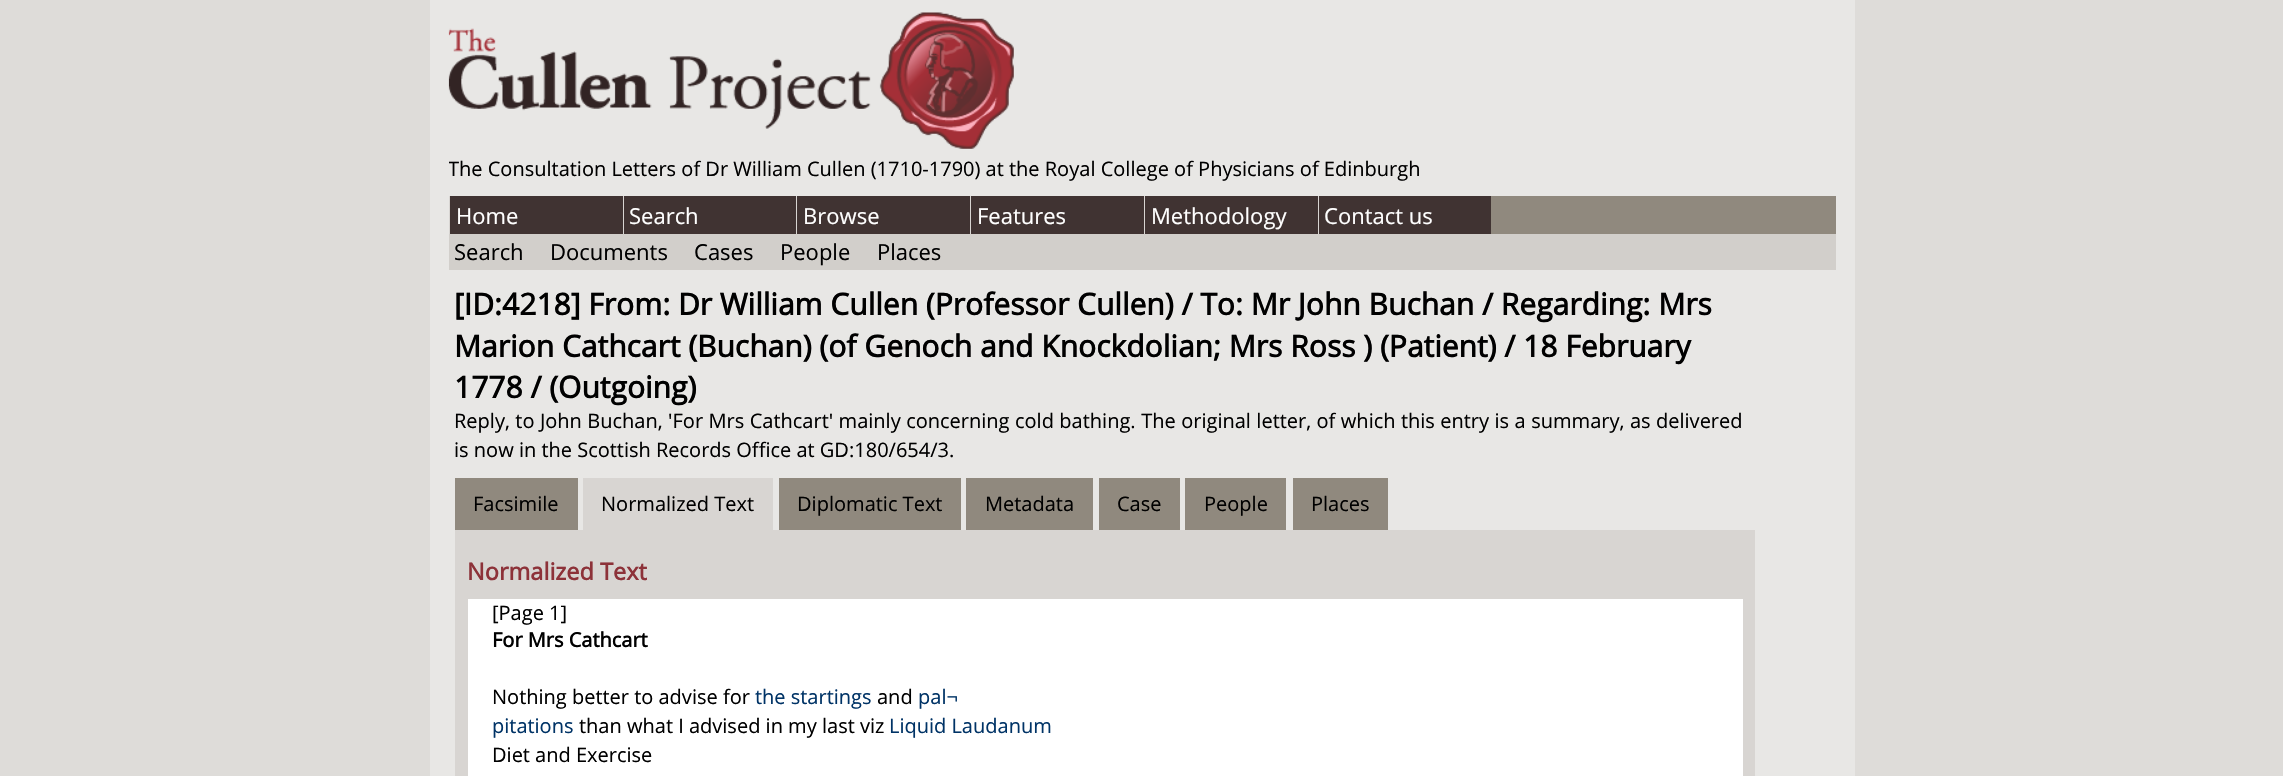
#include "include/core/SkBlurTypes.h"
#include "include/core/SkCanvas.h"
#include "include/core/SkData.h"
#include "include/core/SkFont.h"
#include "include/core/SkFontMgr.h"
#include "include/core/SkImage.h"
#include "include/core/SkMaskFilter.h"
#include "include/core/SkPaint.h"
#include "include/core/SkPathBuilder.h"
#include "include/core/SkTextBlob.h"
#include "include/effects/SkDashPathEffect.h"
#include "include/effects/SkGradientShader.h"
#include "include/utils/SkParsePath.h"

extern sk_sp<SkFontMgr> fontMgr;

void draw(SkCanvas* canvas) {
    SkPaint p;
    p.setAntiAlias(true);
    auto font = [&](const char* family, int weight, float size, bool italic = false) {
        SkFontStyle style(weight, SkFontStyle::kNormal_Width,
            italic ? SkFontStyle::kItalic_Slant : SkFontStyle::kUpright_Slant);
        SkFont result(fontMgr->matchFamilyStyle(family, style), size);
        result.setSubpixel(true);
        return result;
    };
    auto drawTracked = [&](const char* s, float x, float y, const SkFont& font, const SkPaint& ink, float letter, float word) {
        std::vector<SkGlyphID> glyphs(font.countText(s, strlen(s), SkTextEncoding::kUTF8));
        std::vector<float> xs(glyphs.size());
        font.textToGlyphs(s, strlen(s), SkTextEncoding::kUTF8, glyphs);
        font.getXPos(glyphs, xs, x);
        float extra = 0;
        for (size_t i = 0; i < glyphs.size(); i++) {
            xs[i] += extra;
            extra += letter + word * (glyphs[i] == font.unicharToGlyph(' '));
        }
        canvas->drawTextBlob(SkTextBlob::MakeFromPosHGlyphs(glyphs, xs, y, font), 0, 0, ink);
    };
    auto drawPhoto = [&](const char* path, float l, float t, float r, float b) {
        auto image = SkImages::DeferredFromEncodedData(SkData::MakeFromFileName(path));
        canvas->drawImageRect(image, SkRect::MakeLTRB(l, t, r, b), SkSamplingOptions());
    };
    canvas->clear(0xFFDEDCD9);
    p.setColor(0xFFE8E7E5);
    canvas->drawRect(SkRect::MakeLTRB(430, 0, 1855, 776), p);
    drawPhoto("media/1.png", 448, 12, 1014, 149);
    canvas->save();
    canvas->clipRect(SkRect::MakeLTRB(449, 0, 1836, 270));
    auto font1 = font("Open Sans", 400, 20);
    p.setColor(0xFF000000);
    canvas->drawString("The Consultation Letters of Dr William Cullen (1710-1790) at the Royal College of Physicians of Edinburgh", 448, 176, font1, p);
    canvas->restore();
    {
        const struct { float l, t, r, b; SkColor color; } items[] = {
            {1491, 196, 1836, 234, 0xFF90897E},
            {450, 196, 623, 234, 0xFF403332},
            {449, 196, 450, 234, 0xFFD8D5D2},
        };
        for (auto [l, t, r, b, color] : items) {
            p.setColor(color);
            canvas->drawRect(SkRect::MakeLTRB(l, t, r, b), p);
        }
    }
    auto font2 = font("Open Sans", 400, 22);
    p.setColor(0xFFFFFFFF);
    canvas->drawString("Home", 456, 224, font2, p);
    p.setColor(0xFF403332);
    canvas->drawRect(SkRect::MakeLTRB(624, 196, 796, 234), p);
    p.setColor(0xFFD8D5D2);
    canvas->drawRect(SkRect::MakeLTRB(623, 196, 624, 234), p);
    p.setColor(0xFFFFFFFF);
    canvas->drawString("Search", 629, 224, font2, p);
    p.setColor(0xFF403332);
    canvas->drawRect(SkRect::MakeLTRB(797, 196, 970, 234), p);
    p.setColor(0xFFD8D5D2);
    canvas->drawRect(SkRect::MakeLTRB(796, 196, 797, 234), p);
    p.setColor(0xFFFFFFFF);
    canvas->drawString("Browse", 803, 224, font2, p);
    p.setColor(0xFF403332);
    canvas->drawRect(SkRect::MakeLTRB(971, 196, 1144, 234), p);
    p.setColor(0xFFD8D5D2);
    canvas->drawRect(SkRect::MakeLTRB(970, 196, 971, 234), p);
    p.setColor(0xFFFFFFFF);
    canvas->drawString("Features", 977, 224, font2, p);
    p.setColor(0xFF403332);
    canvas->drawRect(SkRect::MakeLTRB(1145, 196, 1318, 234), p);
    p.setColor(0xFFD8D5D2);
    canvas->drawRect(SkRect::MakeLTRB(1144, 196, 1145, 234), p);
    p.setColor(0xFFFFFFFF);
    canvas->drawString("Methodology", 1151, 224, font2, p);
    p.setColor(0xFF403332);
    canvas->drawRect(SkRect::MakeLTRB(1319, 196, 1491, 234), p);
    p.setColor(0xFFD8D5D2);
    canvas->drawRect(SkRect::MakeLTRB(1318, 196, 1319, 234), p);
    p.setColor(0xFFFFFFFF);
    canvas->drawString("Contact us", 1324, 224, font2, p);
    p.setColor(0xFFD2CFCB);
    canvas->drawRect(SkRect::MakeLTRB(449, 234, 1836, 270), p);
    p.setColor(0xFF000000);
    {
        const struct { const char* s; float x, y; } items[] = {
            {"Search", 454, 260},
            {"Documents", 550, 260},
            {"Cases", 694, 260},
            {"People", 780, 260},
            {"Places", 877, 260},
        };
        for (auto [s, x, y] : items) {
            canvas->drawString(s, x, y, font2, p);
        }
    }
    auto font3 = font("Open Sans", 700, 30);
    {
        const struct { const char* s; float x, y; } items[] = {
            {"[ID:4218] From: Dr William Cullen (Professor Cullen) / To: Mr John Buchan / Regarding: Mrs", 454, 315},
            {"Marion Cathcart (Buchan) (of Genoch and Knockdolian; Mrs Ross ) (Patient) / 18 February", 454, 357},
            {"1778 / (Outgoing)", 454, 398},
        };
        for (auto [s, x, y] : items) {
            canvas->drawString(s, x, y, font3, p);
        }
    }
    drawTracked("Reply, to John Buchan, 'For Mrs Cathcart' mainly concerning cold bathing. The original letter, of which this entry is a summary, as delivered", 454, 428, font1, p, 0, 0.25f);
    canvas->drawString("is now in the Scottish Records Office at GD:180/654/3.", 454, 457, font1, p);
    p.setColor(0xFF90897E);
    canvas->drawRect(SkRect::MakeLTRB(455, 478, 578, 530), p);
    p.setColor(0xFF000000);
    canvas->drawString("Facsimile", 473, 511, font1, p);
    p.setColor(0xFFD8D5D2);
    canvas->drawRect(SkRect::MakeLTRB(583, 478, 773, 530), p);
    p.setColor(0xFF000000);
    canvas->drawString("Normalized Text", 601, 511, font1, p);
    p.setColor(0xFF90897E);
    canvas->drawRect(SkRect::MakeLTRB(779, 478, 961, 530), p);
    p.setColor(0xFF000000);
    canvas->drawString("Diplomatic Text", 797, 511, font1, p);
    p.setColor(0xFF90897E);
    canvas->drawRect(SkRect::MakeLTRB(966, 478, 1093, 530), p);
    p.setColor(0xFF000000);
    canvas->drawString("Metadata", 985, 511, font1, p);
    p.setColor(0xFF90897E);
    canvas->drawRect(SkRect::MakeLTRB(1099, 478, 1180, 530), p);
    p.setColor(0xFF000000);
    canvas->drawString("Case", 1117, 511, font1, p);
    p.setColor(0xFF90897E);
    canvas->drawRect(SkRect::MakeLTRB(1185, 478, 1286, 530), p);
    p.setColor(0xFF000000);
    canvas->drawString("People", 1204, 511, font1, p);
    p.setColor(0xFF90897E);
    canvas->drawRect(SkRect::MakeLTRB(1293, 478, 1388, 530), p);
    p.setColor(0xFF000000);
    canvas->drawString("Places", 1311, 511, font1, p);
    p.setColor(0xFFD8D5D2);
    canvas->drawRect(SkRect::MakeLTRB(455, 530, 1755, 776), p);
    auto font4 = font("Open Sans", 700, 23.5f);
    p.setColor(0xFF8D3239);
    canvas->drawString("Normalized Text", 467, 580, font4, p);
    p.setColor(0xFFFFFFFF);
    canvas->drawRect(SkRect::MakeLTRB(468, 599, 1743, 776), p);
    p.setColor(0xFF000000);
    canvas->drawString("[Page 1]", 492, 620, font1, p);
    auto font5 = font("Open Sans", 700, 20);
    canvas->drawString("For Mrs Cathcart", 492, 647, font5, p);
    canvas->drawString("Nothing better to advise for", 492, 704, font1, p);
    p.setColor(0xFF003366);
    canvas->drawString("the startings", 755, 704, font1, p);
    p.setColor(0xFF000000);
    canvas->drawString("and", 877, 704, font1, p);
    p.setColor(0xFF003366);
    canvas->drawString("pal¬", 918, 704, font1, p);
    canvas->drawString("pitations", 492, 733, font1, p);
    p.setColor(0xFF000000);
    canvas->drawString("than what I advised in my last viz", 579, 733, font1, p);
    p.setColor(0xFF003366);
    canvas->drawString("Liquid Laudanum", 889, 733, font1, p);
    p.setColor(0xFF000000);
    canvas->drawString("Diet and Exercise", 492, 762, font1, p);
}
